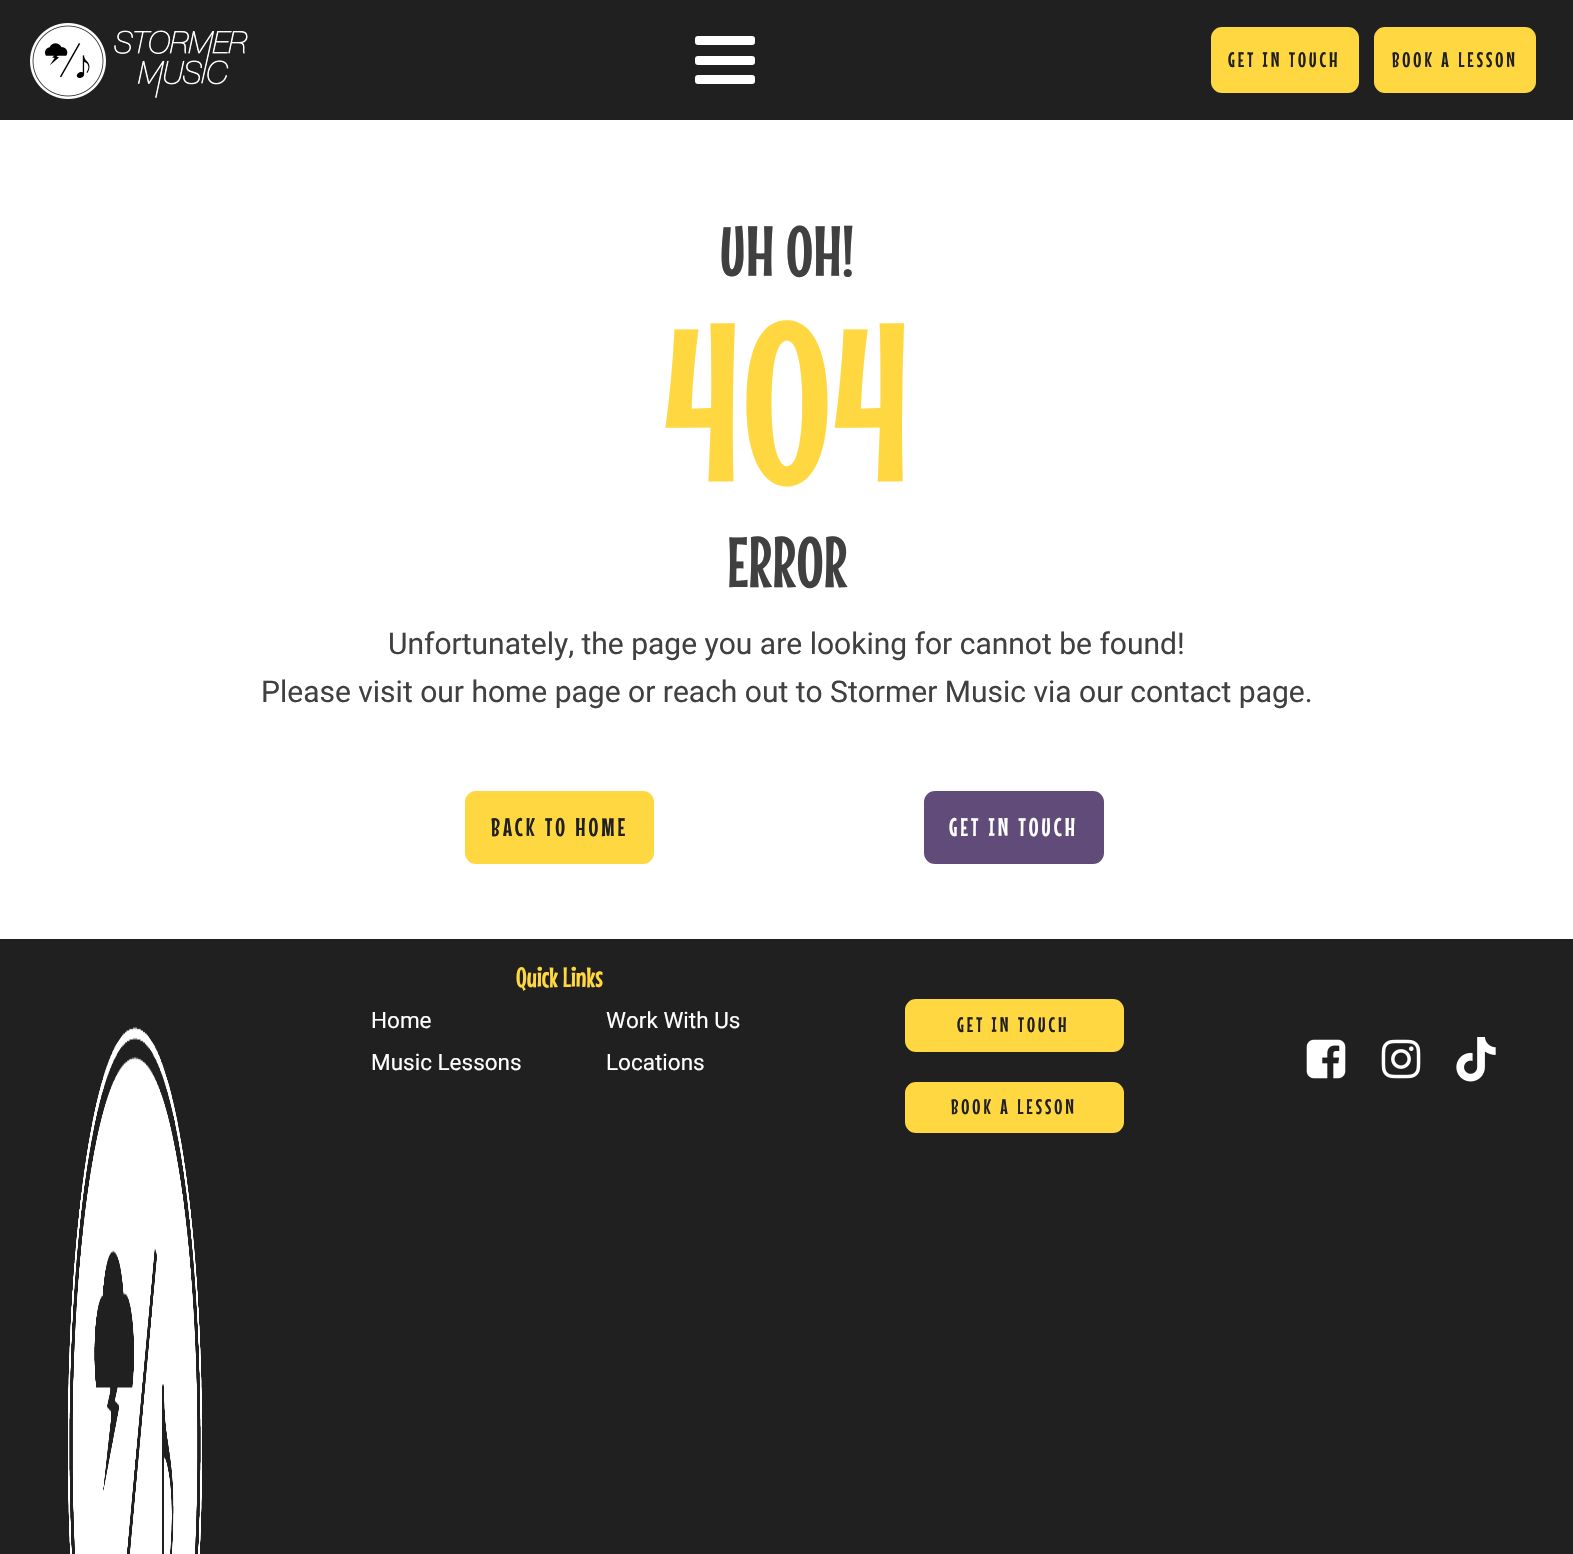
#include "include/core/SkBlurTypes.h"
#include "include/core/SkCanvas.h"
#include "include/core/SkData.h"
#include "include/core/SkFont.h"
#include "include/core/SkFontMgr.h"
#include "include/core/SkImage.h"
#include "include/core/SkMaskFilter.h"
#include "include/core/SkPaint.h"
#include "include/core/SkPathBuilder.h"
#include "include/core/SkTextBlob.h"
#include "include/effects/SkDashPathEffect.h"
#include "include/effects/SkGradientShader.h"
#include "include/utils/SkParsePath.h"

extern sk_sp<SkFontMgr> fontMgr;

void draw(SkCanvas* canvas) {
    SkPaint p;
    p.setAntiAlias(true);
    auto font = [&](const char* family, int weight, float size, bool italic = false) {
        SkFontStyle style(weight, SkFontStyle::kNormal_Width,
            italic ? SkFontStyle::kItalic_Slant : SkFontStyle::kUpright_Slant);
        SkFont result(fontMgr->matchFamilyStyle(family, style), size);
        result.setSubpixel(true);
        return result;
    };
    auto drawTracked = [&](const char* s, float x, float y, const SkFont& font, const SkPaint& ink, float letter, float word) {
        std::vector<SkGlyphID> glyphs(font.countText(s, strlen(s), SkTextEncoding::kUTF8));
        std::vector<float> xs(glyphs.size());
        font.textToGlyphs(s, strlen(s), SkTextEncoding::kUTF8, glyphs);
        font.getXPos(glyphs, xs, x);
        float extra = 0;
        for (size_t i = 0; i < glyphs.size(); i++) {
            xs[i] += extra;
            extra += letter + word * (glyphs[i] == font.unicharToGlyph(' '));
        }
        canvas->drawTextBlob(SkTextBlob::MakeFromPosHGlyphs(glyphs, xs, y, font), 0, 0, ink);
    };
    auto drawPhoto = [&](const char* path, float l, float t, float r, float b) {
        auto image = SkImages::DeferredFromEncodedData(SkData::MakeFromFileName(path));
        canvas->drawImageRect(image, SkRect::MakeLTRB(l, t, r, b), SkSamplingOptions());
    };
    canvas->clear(0xFFFFFFFF);
    p.setColor(0xFF202020);
    canvas->drawRect(SkRect::MakeLTRB(0, 0, 1573, 120), p);
    drawPhoto("media/1.png", 30, 23, 248, 99);
    p.setColor(0xFFFFFFFF);
    canvas->drawRoundRect(SkRect::MakeLTRB(695, 36, 755, 45), 3, 3, p);
    canvas->drawRoundRect(SkRect::MakeLTRB(695, 56, 755, 65), 3, 3, p);
    canvas->drawRoundRect(SkRect::MakeLTRB(695, 75, 755, 84), 3, 3, p);
    p.setColor(0xFFFFD740);
    canvas->drawRoundRect(SkRect::MakeLTRB(1212, 28, 1358, 92), 10, 10, p);
    p.setStyle(SkPaint::kStroke_Style);
    p.setStrokeWidth(2);
    canvas->drawRoundRect(SkRect::MakeLTRB(1212, 28, 1358, 92), 10, 10, p);
    auto font1 = font("Mouse Memoirs", 400, 21);
    p.setStyle(SkPaint::kFill_Style);
    p.setColor(0xFF202020);
    drawTracked("GET IN TOUCH", 1228, 67, font1, p, 3, 0);
    p.setColor(0xFFFFD740);
    canvas->drawRoundRect(SkRect::MakeLTRB(1375, 28, 1535, 92), 10, 10, p);
    p.setStyle(SkPaint::kStroke_Style);
    canvas->drawRoundRect(SkRect::MakeLTRB(1375, 28, 1535, 92), 10, 10, p);
    p.setStyle(SkPaint::kFill_Style);
    p.setColor(0xFF202020);
    drawTracked("BOOK A LESSON", 1392, 67, font1, p, 3, 0);
    auto font2 = font("Mouse Memoirs", 400, 71);
    p.setColor(0xFF404040);
    canvas->drawString("UH OH!", 720, 276, font2, p);
    auto font3 = font("Mouse Memoirs", 400, 225);
    p.setColor(0xFFFFD740);
    canvas->drawString("404", 663, 482, font3, p);
    p.setColor(0xFF404040);
    canvas->drawString("ERROR", 727, 587, font2, p);
    auto font4 = font("Roboto", 400, 30);
    canvas->drawString("Unfortunately, the page you are looking for cannot be found!", 388, 654, font4, p);
    canvas->drawString("Please visit our home page or reach out to Stormer Music via our contact page.", 261, 702, font4, p);
    p.setColor(0xFFFFD740);
    canvas->drawRoundRect(SkRect::MakeLTRB(466, 792, 653, 863), 10, 10, p);
    p.setStyle(SkPaint::kStroke_Style);
    canvas->drawRoundRect(SkRect::MakeLTRB(466, 792, 653, 863), 10, 10, p);
    auto font5 = font("Mouse Memoirs", 400, 25.5f);
    p.setStyle(SkPaint::kFill_Style);
    p.setColor(0xFF202020);
    drawTracked("BACK TO HOME", 491, 836, font5, p, 3, 0);
    p.setColor(0xFF614B79);
    canvas->drawRoundRect(SkRect::MakeLTRB(925, 792, 1103, 863), 10, 10, p);
    p.setStyle(SkPaint::kStroke_Style);
    canvas->drawRoundRect(SkRect::MakeLTRB(925, 792, 1103, 863), 10, 10, p);
    p.setStyle(SkPaint::kFill_Style);
    p.setColor(0xFFFFFFFF);
    drawTracked("GET IN TOUCH", 949, 836, font5, p, 3, 0);
    p.setColor(0xFF202020);
    canvas->drawRect(SkRect::MakeLTRB(0, 939, 1573, 1554), p);
    drawPhoto("media/2.png", 68, 1027, 202, 1554);
    auto font6 = font("Mouse Memoirs", 400, 28);
    p.setColor(0xFFFFD740);
    canvas->drawString("Quick Links", 516, 987, font6, p);
    auto font7 = font("Roboto", 400, 22.5f);
    p.setColor(0xFFFFFFFF);
    {
        const struct { const char* s; float x, y; } items[] = {
            {"Home", 371, 1028},
            {"Music Lessons", 371, 1070},
            {"Work With Us", 606, 1028},
            {"Locations", 606, 1070},
        };
        for (auto [s, x, y] : items) {
            canvas->drawString(s, x, y, font7, p);
        }
    }
    p.setColor(0xFFFFD740);
    canvas->drawRoundRect(SkRect::MakeLTRB(906, 1000, 1123, 1051), 10, 10, p);
    p.setStyle(SkPaint::kStroke_Style);
    canvas->drawRoundRect(SkRect::MakeLTRB(906, 1000, 1123, 1051), 10, 10, p);
    p.setStyle(SkPaint::kFill_Style);
    p.setColor(0xFF202020);
    drawTracked("GET IN TOUCH", 957, 1032, font1, p, 3, 0);
    p.setColor(0xFFFFD740);
    canvas->drawRoundRect(SkRect::MakeLTRB(906, 1083, 1123, 1132), 10, 10, p);
    p.setStyle(SkPaint::kStroke_Style);
    canvas->drawRoundRect(SkRect::MakeLTRB(906, 1083, 1123, 1132), 10, 10, p);
    p.setStyle(SkPaint::kFill_Style);
    p.setColor(0xFF202020);
    drawTracked("BOOK A LESSON", 951, 1114, font1, p, 3, 0);
    drawPhoto("media/3.png", 1306, 1039, 1346, 1079);
    drawPhoto("media/4.png", 1381, 1039, 1421, 1079);
    drawPhoto("media/5.png", 1456, 1037, 1496, 1082);
}
